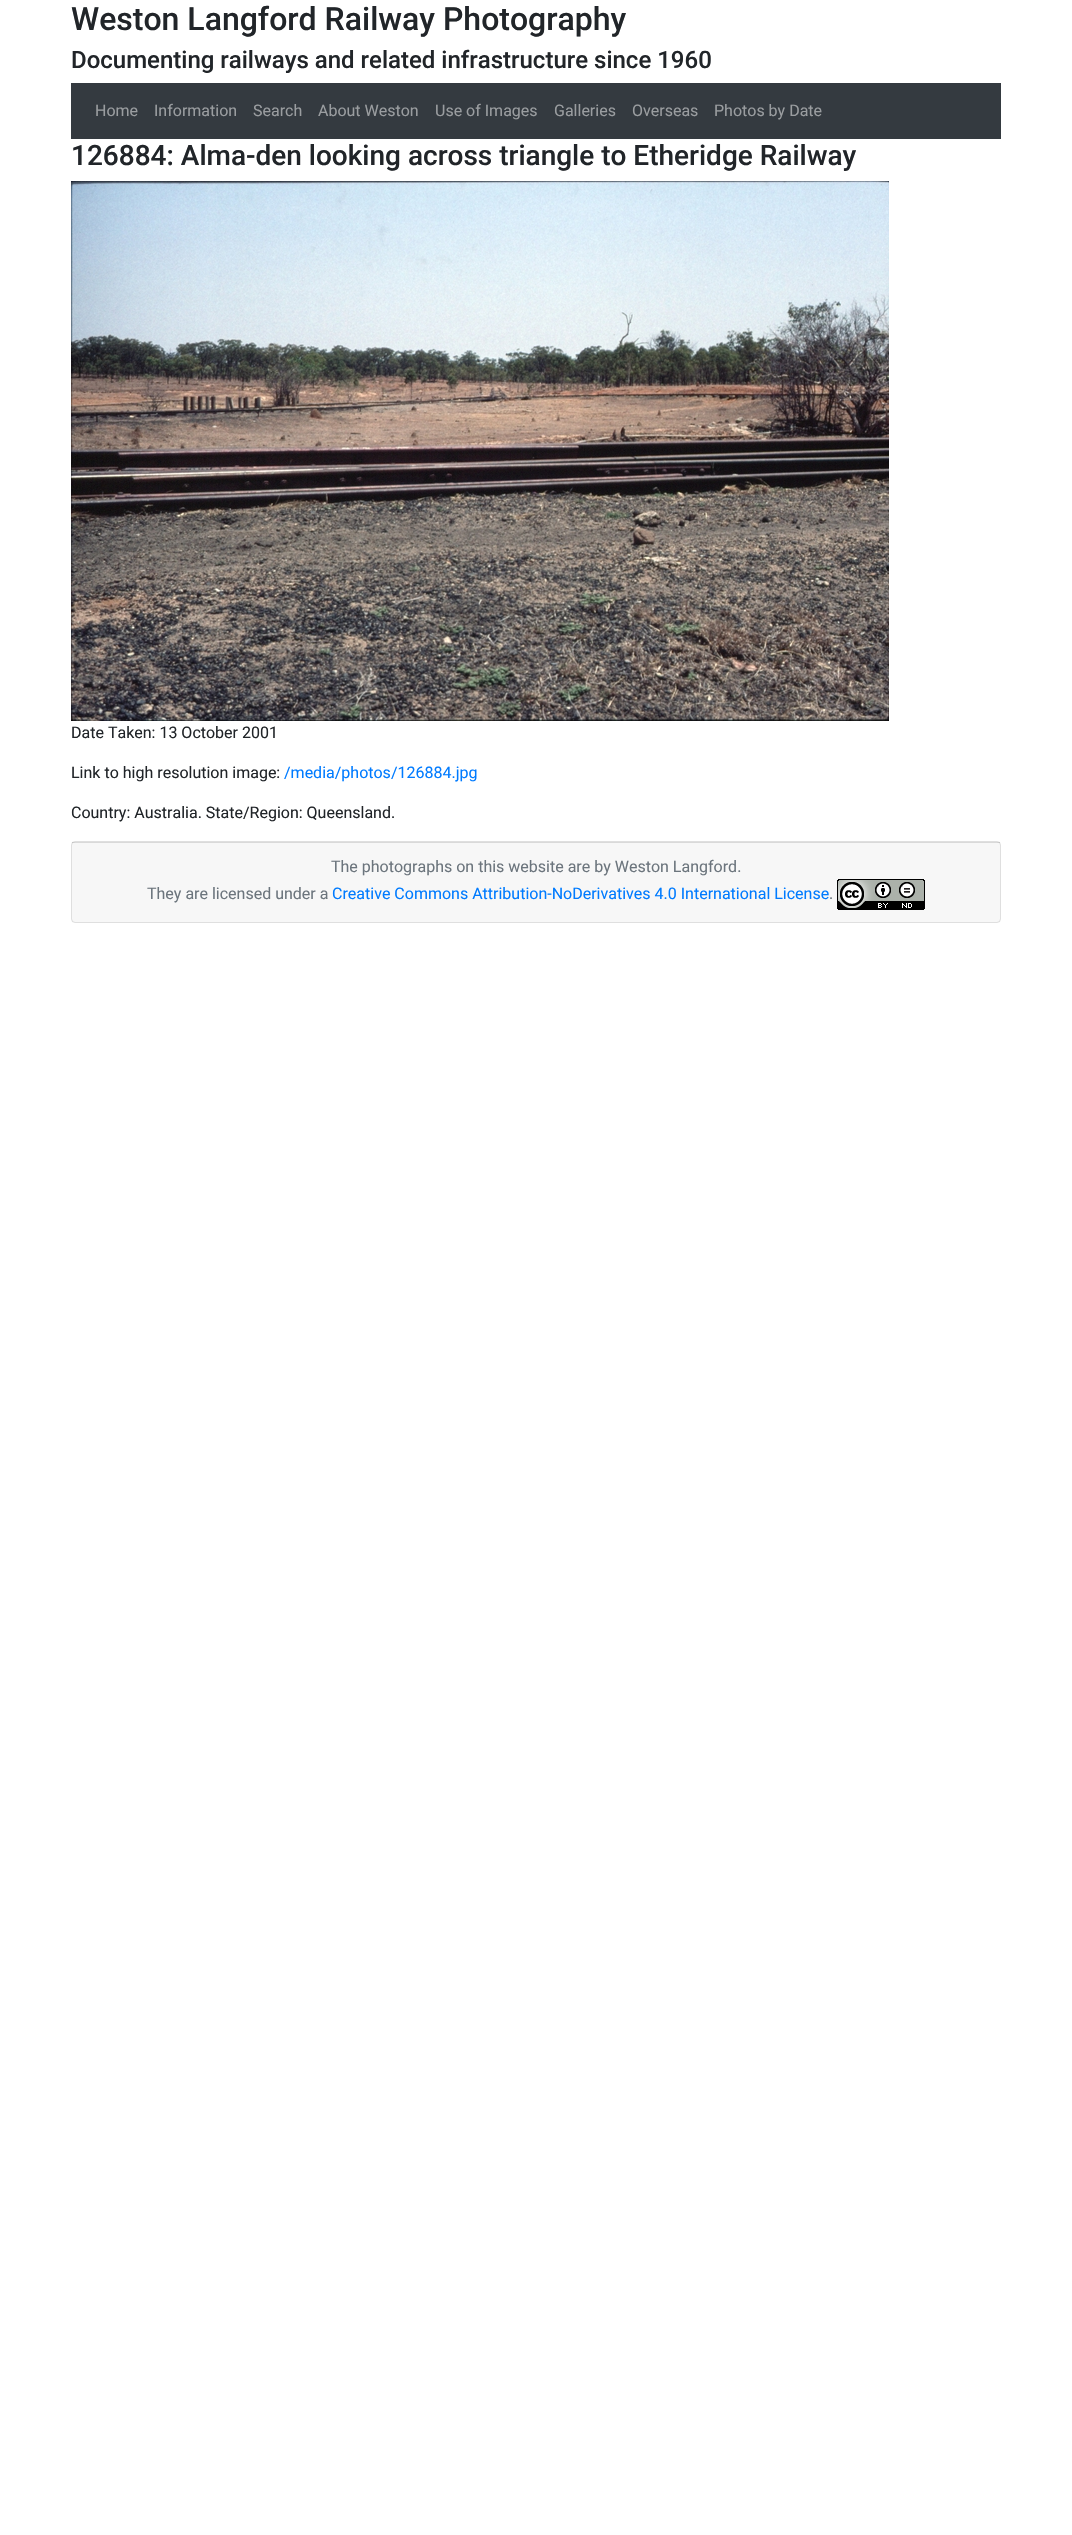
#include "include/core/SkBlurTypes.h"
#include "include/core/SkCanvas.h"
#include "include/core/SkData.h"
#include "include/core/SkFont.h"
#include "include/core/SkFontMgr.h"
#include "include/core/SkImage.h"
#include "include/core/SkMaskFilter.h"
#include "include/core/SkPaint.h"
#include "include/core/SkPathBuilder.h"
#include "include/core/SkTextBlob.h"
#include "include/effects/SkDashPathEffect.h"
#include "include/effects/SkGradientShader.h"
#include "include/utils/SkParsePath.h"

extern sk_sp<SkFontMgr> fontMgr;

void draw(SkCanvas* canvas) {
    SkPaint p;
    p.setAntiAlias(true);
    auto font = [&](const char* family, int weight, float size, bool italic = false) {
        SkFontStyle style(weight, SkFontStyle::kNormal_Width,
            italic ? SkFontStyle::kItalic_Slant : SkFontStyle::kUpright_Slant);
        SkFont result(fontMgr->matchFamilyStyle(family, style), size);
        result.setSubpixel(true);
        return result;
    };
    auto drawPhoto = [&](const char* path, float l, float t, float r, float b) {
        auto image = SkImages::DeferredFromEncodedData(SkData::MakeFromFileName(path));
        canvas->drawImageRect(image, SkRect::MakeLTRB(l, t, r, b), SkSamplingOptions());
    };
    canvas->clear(0xFFFFFFFF);
    auto font1 = font("Roboto", 500, 32);
    p.setColor(0xFF212529);
    canvas->drawString("Weston Langford Railway Photography", 71, 30, font1, p);
    auto font2 = font("Roboto", 500, 24);
    canvas->drawString("Documenting railways and related infrastructure since 1960", 71, 68, font2, p);
    p.setColor(0xFF343A40);
    canvas->drawRect(SkRect::MakeLTRB(71, 83, 1001, 139), p);
    auto font3 = font("Roboto", 400, 16);
    p.setColor(0xFF9A9DA0);
    {
        const struct { const char* s; float x, y; } items[] = {
            {"Home", 95, 116},
            {"Information", 154, 116},
            {"Search", 253, 116},
            {"About Weston", 318, 116},
            {"Use of Images", 435, 116},
            {"Galleries", 554, 116},
            {"Overseas", 632, 116},
            {"Photos by Date", 714, 116},
        };
        for (auto [s, x, y] : items) {
            canvas->drawString(s, x, y, font3, p);
        }
    }
    auto font4 = font("Roboto", 500, 28);
    p.setColor(0xFF212529);
    canvas->drawString("126884: Alma-den looking across triangle to Etheridge Railway", 71, 165, font4, p);
    drawPhoto("media/1.png", 71, 181, 889, 721);
    canvas->drawString("Date Taken: 13 October 2001", 71, 738, font3, p);
    canvas->drawString("Link to high resolution image:", 71, 778, font3, p);
    p.setColor(0xFF007BFF);
    canvas->drawString("/media/photos/126884.jpg", 284, 778, font3, p);
    p.setColor(0xFF212529);
    canvas->drawString("Country: Australia. State/Region: Queensland.", 71, 818, font3, p);
    p.setStyle(SkPaint::kStroke_Style);
    p.setStrokeWidth(1);
    p.setColor(0xFFDFDFDF);
    canvas->drawRoundRect(SkRect::MakeLTRB(71.5f, 841.5f, 1000.5f, 922.5f), 3.5f, 3.5f, p);
    p.setStyle(SkPaint::kFill_Style);
    p.setColor(0x08000000);
    canvas->drawRect(SkRect::MakeLTRB(72, 842, 1000, 922), p);
    p.setColor(0x1F000000);
    canvas->drawRect(SkRect::MakeLTRB(72, 842, 1000, 843), p);
    p.setColor(0xFF6C757D);
    canvas->drawString("The photographs on this website are by Weston Langford.", 331, 872, font3, p);
    canvas->drawString("They are licensed under a", 147, 899, font3, p);
    p.setColor(0xFF007BFF);
    canvas->drawString("Creative Commons Attribution-NoDerivatives 4.0 International License", 332, 899, font3, p);
    p.setColor(0xFF6C757D);
    canvas->drawString(".", 829, 899, font3, p);
    drawPhoto("media/2.png", 837, 879, 925, 910);
}
